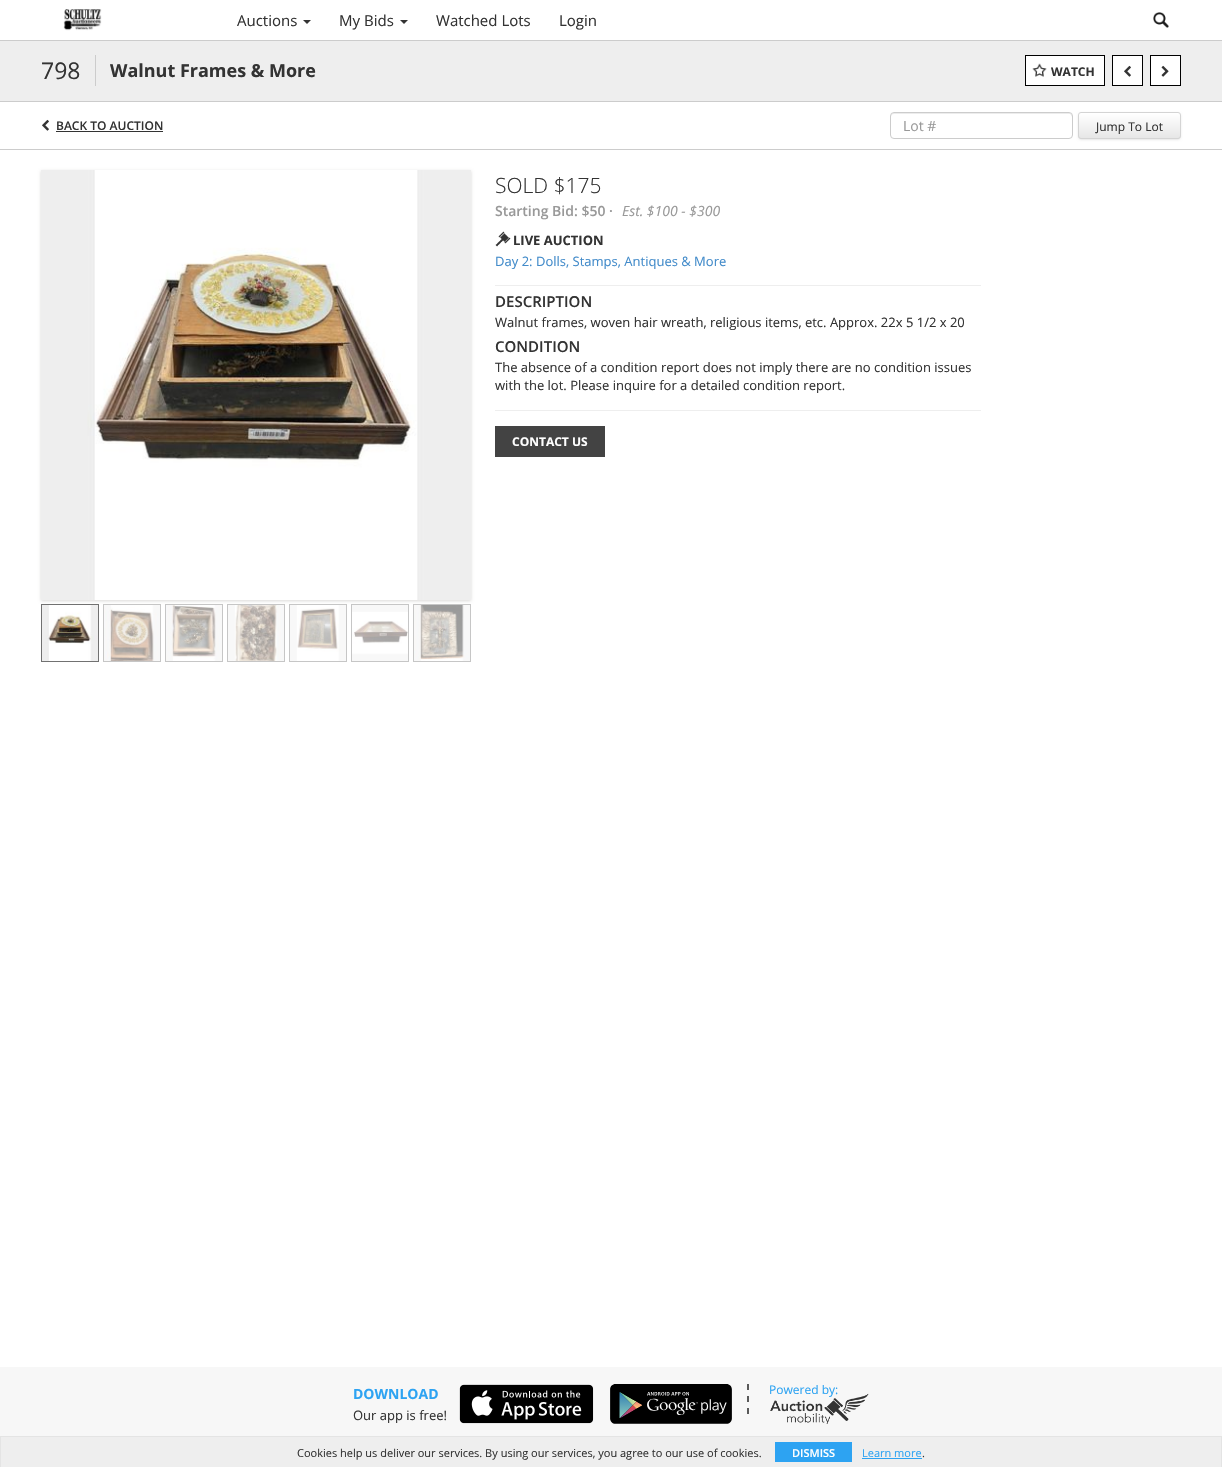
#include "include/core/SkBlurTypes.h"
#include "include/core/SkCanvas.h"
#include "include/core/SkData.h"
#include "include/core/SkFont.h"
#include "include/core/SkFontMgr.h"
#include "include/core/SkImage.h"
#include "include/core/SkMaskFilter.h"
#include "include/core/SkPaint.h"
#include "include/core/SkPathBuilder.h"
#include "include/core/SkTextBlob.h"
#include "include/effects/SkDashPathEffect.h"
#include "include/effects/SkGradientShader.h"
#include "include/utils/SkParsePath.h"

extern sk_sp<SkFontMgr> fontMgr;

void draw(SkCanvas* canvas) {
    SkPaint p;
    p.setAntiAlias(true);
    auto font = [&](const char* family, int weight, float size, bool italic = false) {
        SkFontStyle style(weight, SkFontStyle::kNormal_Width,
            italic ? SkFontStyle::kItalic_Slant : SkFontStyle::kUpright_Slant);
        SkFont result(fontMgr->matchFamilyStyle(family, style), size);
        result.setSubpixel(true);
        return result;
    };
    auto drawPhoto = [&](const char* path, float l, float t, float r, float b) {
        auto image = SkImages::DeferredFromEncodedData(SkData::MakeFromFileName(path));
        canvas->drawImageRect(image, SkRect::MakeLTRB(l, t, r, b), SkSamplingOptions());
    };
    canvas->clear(0xFFFFFFFF);
    drawPhoto("media/1.png", 63, 9, 102, 31);
    auto font1 = font("Open Sans", 400, 15);
    p.setColor(0xFF333333);
    canvas->drawString("Auctions", 237, 26, font1, p);
    canvas->drawPath(SkPathBuilder().moveTo(303, 20).lineTo(311, 20).lineTo(307, 24).close().detach(), p);
    canvas->drawString("My Bids", 339, 26, font1, p);
    canvas->drawPath(SkPathBuilder().moveTo(400, 20).lineTo(408, 20).lineTo(404, 24).close().detach(), p);
    canvas->drawString("Watched Lots", 436, 26, font1, p);
    canvas->drawString("Login", 559, 26, font1, p);
    drawPhoto("media/2.png", 1153, 12, 1169, 28);
    {
        const struct { float l, t, r, b; SkColor color; } items[] = {
            {0, 40, 1222, 41, 0xFFCCCCCC},
            {0, 41, 1222, 101, 0xFFEEEEEE},
            {0, 101, 1222, 102, 0xFFCCCCCC},
        };
        for (auto [l, t, r, b, color] : items) {
            p.setColor(color);
            canvas->drawRect(SkRect::MakeLTRB(l, t, r, b), p);
        }
    }
    auto font2 = font("Open Sans", 400, 23);
    p.setColor(0xFF333333);
    canvas->drawString("798", 41, 79, font2, p);
    p.setColor(0xFFCCCCCC);
    canvas->drawRect(SkRect::MakeLTRB(95, 55, 96, 86), p);
    auto font3 = font("Open Sans", 700, 18);
    p.setColor(0xFF333333);
    canvas->drawString("Walnut Frames & More", 110, 77, font3, p);
    p.setColor(0xFFFFFFFF);
    canvas->drawRect(SkRect::MakeLTRB(1025.5f, 55.5f, 1104.5f, 85.5f), p);
    p.setStyle(SkPaint::kStroke_Style);
    p.setStrokeWidth(1);
    p.setColor(0xFF000000);
    canvas->drawRect(SkRect::MakeLTRB(1025.5f, 55.5f, 1104.5f, 85.5f), p);
    drawPhoto("media/3.png", 1032, 63, 1047, 77);
    auto font4 = font("Open Sans", 700, 12);
    p.setStyle(SkPaint::kFill_Style);
    p.setColor(0xFF333333);
    canvas->drawString("WATCH", 1051, 76, font4, p);
    p.setColor(0xFFFFFFFF);
    canvas->drawRect(SkRect::MakeLTRB(1112.5f, 55.5f, 1142.5f, 85.5f), p);
    p.setStyle(SkPaint::kStroke_Style);
    p.setColor(0xFF000000);
    canvas->drawRect(SkRect::MakeLTRB(1112.5f, 55.5f, 1142.5f, 85.5f), p);
    drawPhoto("media/4.png", 1124, 65, 1131, 77);
    p.setStyle(SkPaint::kFill_Style);
    p.setColor(0xFFFFFFFF);
    canvas->drawRect(SkRect::MakeLTRB(1150.5f, 55.5f, 1180.5f, 85.5f), p);
    p.setStyle(SkPaint::kStroke_Style);
    p.setColor(0xFF000000);
    canvas->drawRect(SkRect::MakeLTRB(1150.5f, 55.5f, 1180.5f, 85.5f), p);
    drawPhoto("media/5.png", 1161, 65, 1169, 77);
    drawPhoto("media/4.png", 42, 119, 49, 131);
    auto font5 = font("Open Sans", 600, 12);
    p.setStyle(SkPaint::kFill_Style);
    p.setColor(0xFF333333);
    canvas->drawString("BACK TO AUCTION", 56, 130, font5, p);
    canvas->drawRect(SkRect::MakeLTRB(56, 131, 163, 132), p);
    p.setColor(0xFFECECEC);
    canvas->drawPath(SkPathBuilder().moveTo(894, 114).lineTo(1070, 114).lineTo(1071, 115).lineTo(1072, 117).lineTo(1072, 116).cubicTo(1072, 114, 1071, 113, 1069, 113).lineTo(894, 113).cubicTo(892, 113, 891, 114, 891, 116).lineTo(891, 117).cubicTo(891, 115, 892, 114, 894, 114).close().detach(), p);
    p.setStyle(SkPaint::kStroke_Style);
    p.setColor(0xFFCCCCCC);
    canvas->drawRoundRect(SkRect::MakeLTRB(890.5f, 112.5f, 1072.5f, 138.5f), 3.5f, 3.5f, p);
    auto font6 = font("Open Sans", 400, 14);
    p.setStyle(SkPaint::kFill_Style);
    p.setColor(0xFF999999);
    canvas->drawString("Lot #", 903, 131, font6, p);
    p.setColor(0x33000000);
    p.setMaskFilter(SkMaskFilter::MakeBlur(kNormal_SkBlurStyle, 1.5f));
    canvas->drawRoundRect(SkRect::MakeLTRB(1079, 114, 1180, 139), 2, 2, p);
    p.setMaskFilter(nullptr);
    canvas->save();
    canvas->clipPath(SkPathBuilder().moveTo(1081, 112).lineTo(1178, 112).cubicTo(1179.5f, 112, 1181, 113.5f, 1181, 115).lineTo(1181, 136).cubicTo(1181, 137.5f, 1179.5f, 139, 1178, 139).lineTo(1081, 139).cubicTo(1079.5f, 139, 1078, 137.5f, 1078, 136).lineTo(1078, 115).cubicTo(1078, 113.5f, 1079.5f, 112, 1081, 112).close().detach(), true);
    {
        const SkColor colors[] = {0xFFFFFFFF, 0xFFE6E6E6};
        const float stops[] = {0, 1};
        const SkPoint ends[] = {{1130, 113}, {1130, 138}};
        p.setShader(SkGradientShader::MakeLinear(ends, colors, stops, 2, SkTileMode::kClamp));
        p.setAlpha(255);
    }
    canvas->drawRect(SkRect::MakeLTRB(1078, 113, 1181, 138), p);
    canvas->restore();
    p.setShader(nullptr);
    p.setColor(0x66FFFFFF);
    canvas->drawPath(SkPathBuilder().moveTo(1081, 114).lineTo(1178, 114).cubicTo(1179, 114, 1180, 115, 1180, 116).cubicTo(1180, 115, 1180, 113, 1178, 113).lineTo(1097, 113).cubicTo(1096, 113, 1079, 108, 1079, 116).cubicTo(1079, 115, 1080, 114, 1081, 114).close().detach(), p);
    p.setStyle(SkPaint::kStroke_Style);
    p.setColor(0xFFD4D4D4);
    canvas->drawRoundRect(SkRect::MakeLTRB(1078.5f, 112.5f, 1180.5f, 138.5f), 2.5f, 2.5f, p);
    auto font7 = font("Open Sans", 400, 12);
    p.setStyle(SkPaint::kFill_Style);
    p.setColor(0xFF333333);
    canvas->drawString("Jump To Lot", 1096, 131, font7, p);
    p.setColor(0xFFCCCCCC);
    canvas->drawRect(SkRect::MakeLTRB(0, 149, 1222, 150), p);
    p.setColor(0xFFDAD9D7);
    p.setMaskFilter(SkMaskFilter::MakeBlur(kNormal_SkBlurStyle, 1.5f));
    canvas->drawRect(SkRect::MakeLTRB(41, 171, 471, 601), p);
    p.setMaskFilter(nullptr);
    drawPhoto("media/6.png", 41, 170, 471, 600);
    p.setStyle(SkPaint::kStroke_Style);
    p.setColor(0xFF717171);
    canvas->drawRect(SkRect::MakeLTRB(41.5f, 604.5f, 98.5f, 661.5f), p);
    p.setColor(0xFFC6C6C6);
    canvas->drawRect(SkRect::MakeLTRB(103.5f, 604.5f, 160.5f, 661.5f), p);
    canvas->drawRect(SkRect::MakeLTRB(165.5f, 604.5f, 222.5f, 661.5f), p);
    canvas->drawRect(SkRect::MakeLTRB(227.5f, 604.5f, 284.5f, 661.5f), p);
    canvas->drawRect(SkRect::MakeLTRB(289.5f, 604.5f, 346.5f, 661.5f), p);
    canvas->drawRect(SkRect::MakeLTRB(351.5f, 604.5f, 408.5f, 661.5f), p);
    canvas->drawRect(SkRect::MakeLTRB(413.5f, 604.5f, 470.5f, 661.5f), p);
    drawPhoto("media/7.png", 42, 605, 98, 661);
    drawPhoto("media/8.png", 104, 605, 160, 661);
    drawPhoto("media/9.png", 166, 605, 222, 661);
    drawPhoto("media/10.png", 228, 605, 284, 661);
    drawPhoto("media/11.png", 290, 605, 346, 661);
    drawPhoto("media/12.png", 352, 605, 408, 661);
    drawPhoto("media/13.png", 414, 605, 470, 661);
    auto font8 = font("Open Sans", 300, 21);
    p.setStyle(SkPaint::kFill_Style);
    p.setColor(0xFF333333);
    canvas->drawString("SOLD $175", 495, 193, font8, p);
    auto font9 = font("Open Sans", 600, 14);
    p.setColor(0xFF999999);
    canvas->drawString("Starting Bid: $50 ·", 495, 216, font9, p);
    auto font10 = font("Open Sans", 400, 14, true);
    canvas->drawString("Est. $100 - $300", 622, 216, font10, p);
    drawPhoto("media/14.png", 495, 231, 511, 247);
    auto font11 = font("Open Sans", 700, 13);
    p.setColor(0xFF333333);
    canvas->drawString("LIVE AUCTION", 513, 245, font11, p);
    auto font12 = font("Open Sans", 400, 13);
    p.setColor(0xFF428BCA);
    canvas->drawString("Day 2: Dolls, Stamps, Antiques & More", 495, 266, font12, p);
    p.setColor(0xFFEEEEEE);
    canvas->drawRect(SkRect::MakeLTRB(495, 285, 981, 286), p);
    auto font13 = font("Open Sans", 600, 15);
    p.setColor(0xFF333333);
    canvas->drawString("DESCRIPTION", 495, 307, font13, p);
    canvas->drawString("Walnut frames, woven hair wreath, religious items, etc. Approx. 22x 5 1/2 x 20", 495, 327, font12, p);
    canvas->drawString("CONDITION", 495, 352, font13, p);
    canvas->drawString("The absence of a condition report does not imply there are no condition issues", 495, 372, font12, p);
    canvas->drawString("with the lot. Please inquire for a detailed condition report.", 495, 390, font12, p);
    p.setColor(0xFFEEEEEE);
    canvas->drawRect(SkRect::MakeLTRB(495, 410, 981, 411), p);
    p.setColor(0xFF434343);
    canvas->drawRect(SkRect::MakeLTRB(495, 426, 605, 457), p);
    p.setColor(0xFFFFFFFF);
    canvas->drawString("CONTACT US", 512, 446, font4, p);
    p.setColor(0xFFF7F7F7);
    canvas->drawRect(SkRect::MakeLTRB(0, 1367, 1222, 1436), p);
    auto font14 = font("Open Sans", 700, 14);
    p.setColor(0xFF2DA3F2);
    canvas->drawString("DOWNLOAD", 353, 1399, font14, p);
    p.setColor(0xFF333333);
    canvas->drawString("Our app is free!", 353, 1420, font12, p);
    drawPhoto("media/15.png", 459, 1384, 594, 1424);
    drawPhoto("media/16.png", 610, 1384, 732, 1424);
    p.setStyle(SkPaint::kStroke_Style);
    p.setStrokeWidth(2);
    p.setColor(0xFF595959);
    canvas->drawPath(SkPathBuilder().moveTo(748, 1384).lineTo(748, 1390).moveTo(748, 1396).lineTo(748, 1402).moveTo(748, 1408).lineTo(748, 1414).detach(), p);
    p.setStyle(SkPaint::kFill_Style);
    p.setColor(0xFF2DA3F2);
    canvas->drawString("Powered by:", 769, 1394, font7, p);
    drawPhoto("media/17.png", 770, 1393, 869, 1424);
    {
        const struct { float l, t, r, b; SkColor color; } items[] = {
            {1, 1437, 1221, 1467, 0xFFEEEEEE},
            {0, 1436, 1222, 1437, 0xFFE4E4E4},
            {1221, 1436, 1222, 1467, 0xFFE4E4E4},
            {0, 1436, 1, 1467, 0xFFE4E4E4},
        };
        for (auto [l, t, r, b, color] : items) {
            p.setColor(color);
            canvas->drawRect(SkRect::MakeLTRB(l, t, r, b), p);
        }
    }
    auto font15 = font("Open Sans", 400, 11);
    p.setColor(0xFF333333);
    canvas->drawString("Cookies help us deliver our services. By using our services, you agree to our use of cookies.", 297, 1457, font15, p);
    p.setColor(0xFF2DA3F2);
    canvas->drawRect(SkRect::MakeLTRB(775, 1442, 852, 1462), p);
    auto font16 = font("Open Sans", 600, 11);
    p.setColor(0xFFFFFFFF);
    canvas->drawString("DISMISS", 792, 1457, font16, p);
    p.setColor(0xFF2DA3F2);
    canvas->drawString("Learn more", 862, 1457, font15, p);
    canvas->drawRect(SkRect::MakeLTRB(862, 1458, 922, 1459), p);
    p.setColor(0xFF333333);
    canvas->drawString(".", 922, 1457, font15, p);
}
